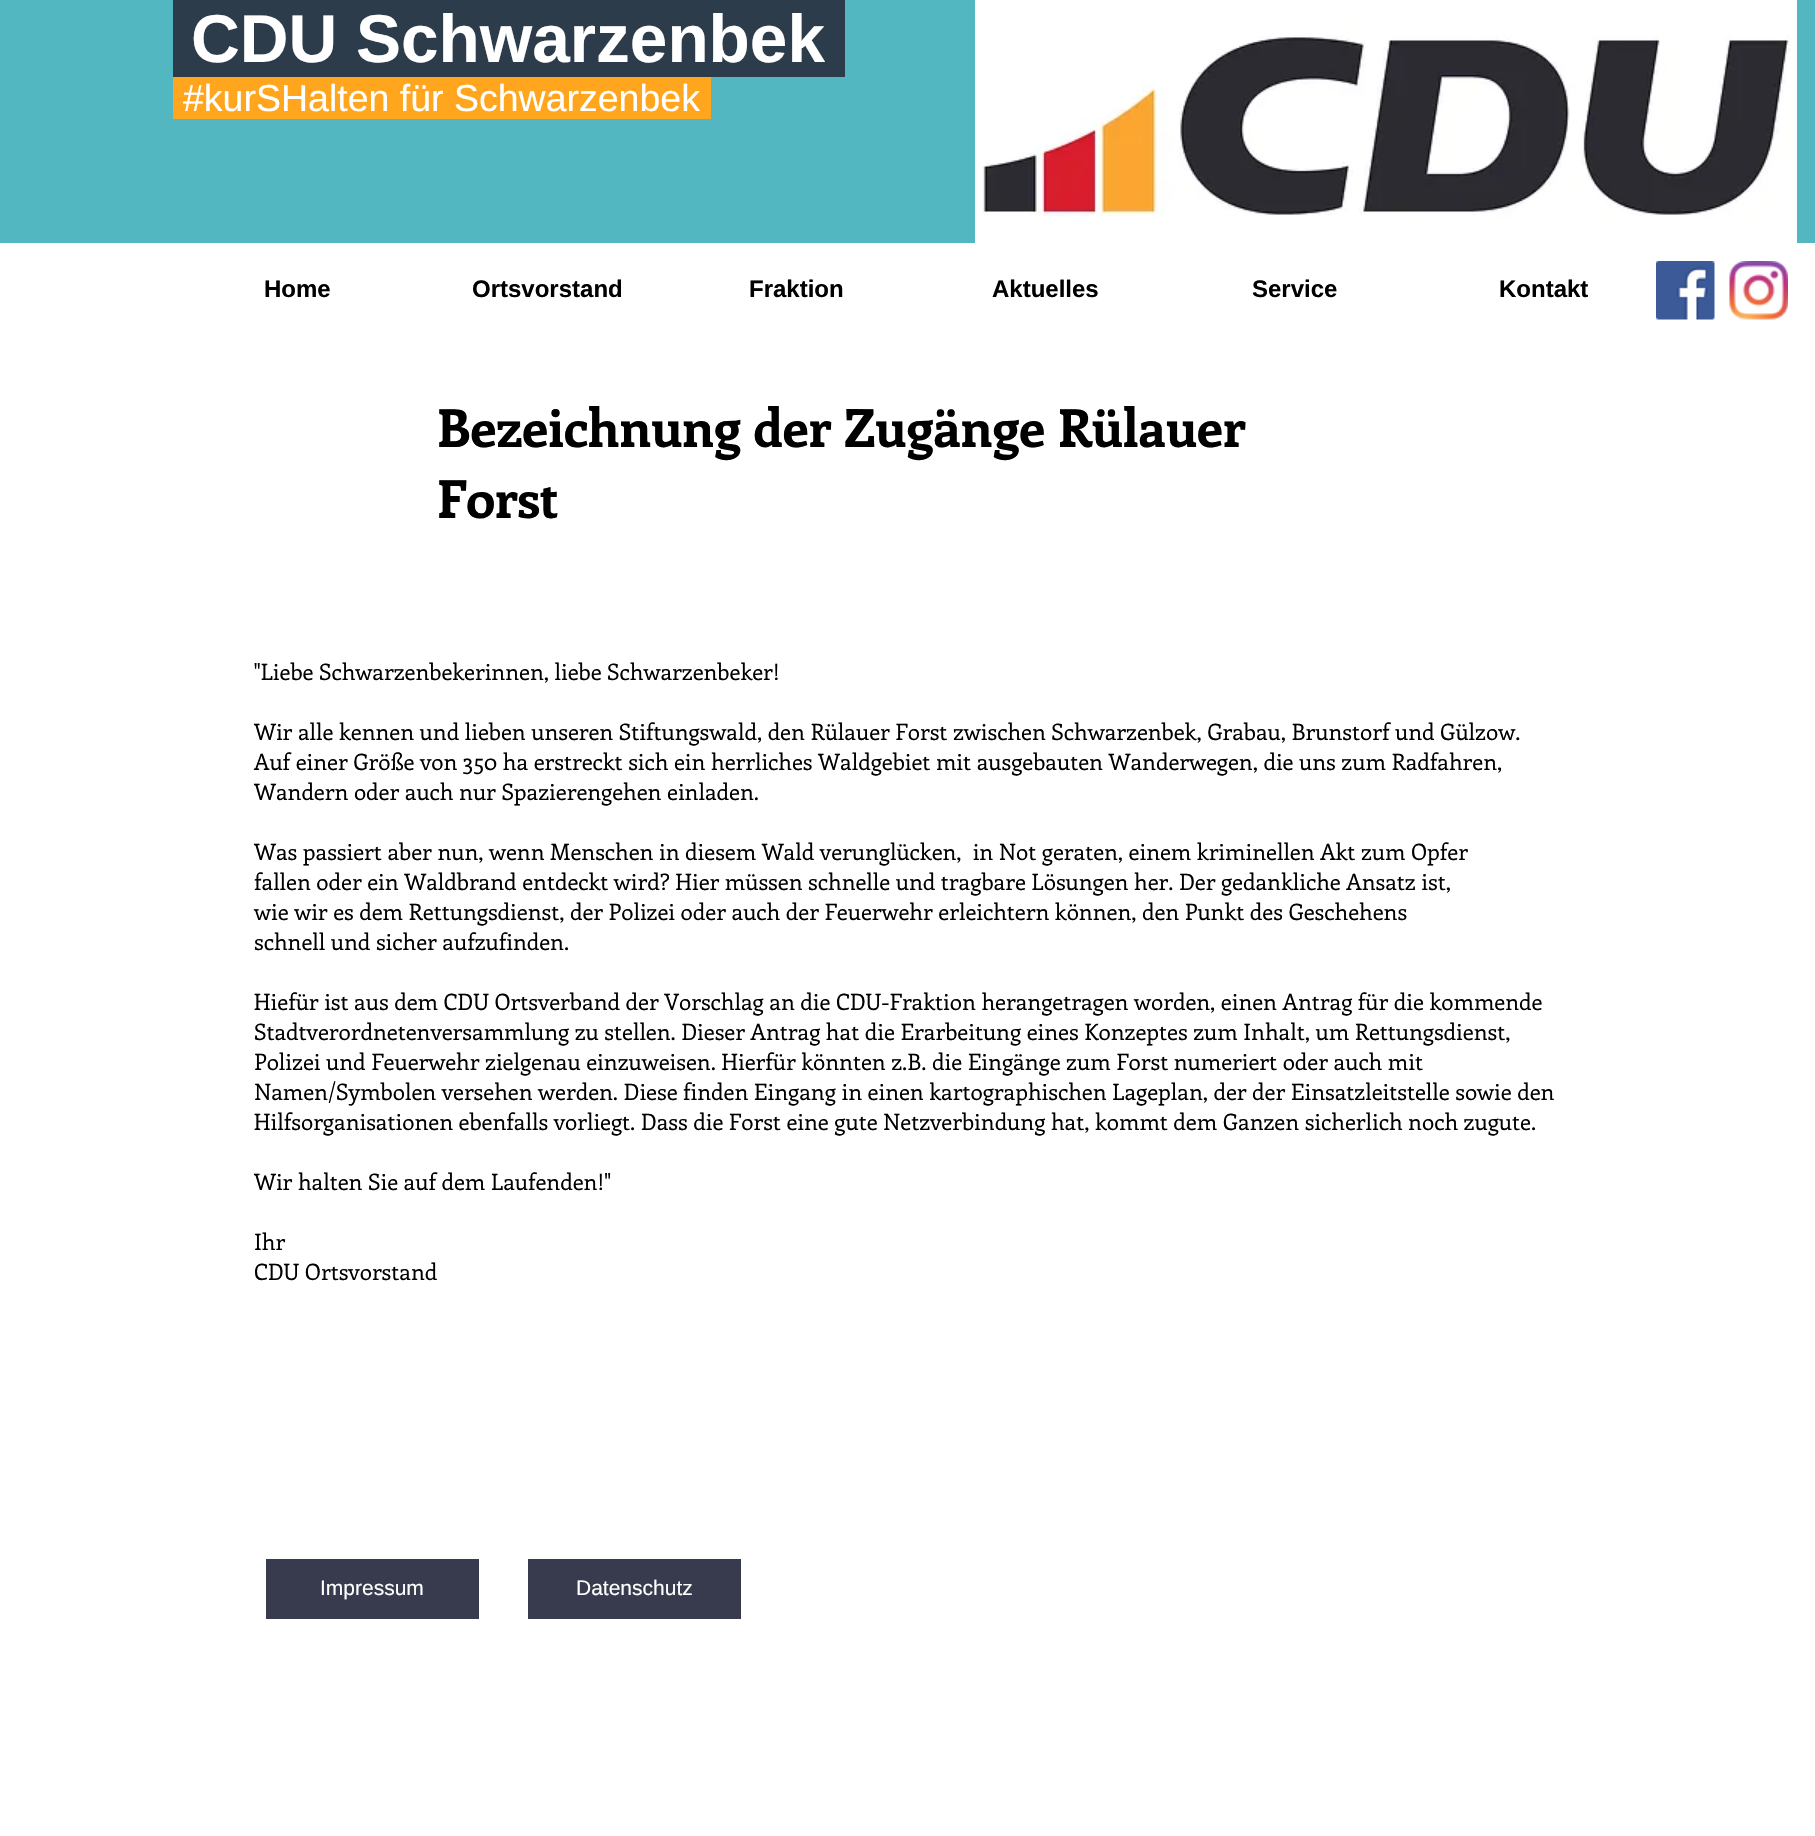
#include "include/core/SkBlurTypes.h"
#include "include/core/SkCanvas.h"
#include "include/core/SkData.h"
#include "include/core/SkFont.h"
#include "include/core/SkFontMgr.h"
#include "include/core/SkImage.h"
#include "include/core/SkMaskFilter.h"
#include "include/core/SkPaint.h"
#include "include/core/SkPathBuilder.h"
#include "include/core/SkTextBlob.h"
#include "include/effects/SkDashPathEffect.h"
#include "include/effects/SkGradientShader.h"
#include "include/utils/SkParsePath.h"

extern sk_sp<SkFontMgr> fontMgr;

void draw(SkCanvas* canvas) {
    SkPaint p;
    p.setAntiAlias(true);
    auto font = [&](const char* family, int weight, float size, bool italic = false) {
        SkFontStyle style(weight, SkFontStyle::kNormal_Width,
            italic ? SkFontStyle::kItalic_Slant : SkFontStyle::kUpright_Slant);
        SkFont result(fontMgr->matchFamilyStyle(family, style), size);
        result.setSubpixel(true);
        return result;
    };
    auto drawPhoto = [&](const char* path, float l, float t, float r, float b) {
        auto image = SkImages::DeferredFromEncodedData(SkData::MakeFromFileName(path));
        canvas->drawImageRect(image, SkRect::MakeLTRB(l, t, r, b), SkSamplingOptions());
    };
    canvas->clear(0xFFFFFFFF);
    p.setColor(0xFF52B7C1);
    canvas->drawRect(SkRect::MakeLTRB(0, 0, 1815, 243), p);
    p.setColor(0xFF2C3C4B);
    canvas->drawRect(SkRect::MakeLTRB(173, 0, 845, 77), p);
    auto font1 = font("Liberation Sans", 700, 67.5f);
    p.setColor(0xFFFFFFFF);
    canvas->drawString("CDU Schwarzenbek", 191, 62, font1, p);
    drawPhoto("media/1.png", 975, 0, 1797, 243);
    p.setColor(0xFFFFA61E);
    canvas->drawRect(SkRect::MakeLTRB(173, 77, 711, 119), p);
    auto font2 = font("Liberation Sans", 400, 37.5f);
    p.setColor(0xFFFFFFFF);
    canvas->drawString("#kurSHalten für Schwarzenbek", 183, 111, font2, p);
    drawPhoto("media/2.png", 1656, 261, 1715, 320);
    drawPhoto("media/3.png", 1729, 261, 1788, 320);
    auto font3 = font("Liberation Sans", 700, 24);
    p.setColor(0xFF000000);
    {
        const struct { const char* s; float x, y; } items[] = {
            {"Home", 264, 297},
            {"Ortsvorstand", 472, 297},
            {"Fraktion", 749, 297},
            {"Aktuelles", 992, 297},
            {"Service", 1252, 297},
            {"Kontakt", 1499, 297},
        };
        for (auto [s, x, y] : items) {
            canvas->drawString(s, x, y, font3, p);
        }
    }
    auto font4 = font("Enriqueta", 700, 52.5f);
    canvas->drawString("Bezeichnung der Zugänge Rülauer", 437, 447, font4, p);
    canvas->drawString("Forst", 437, 518, font4, p);
    auto font5 = font("Enriqueta", 400, 22.5f);
    {
        const struct { const char* s; float x, y; } items[] = {
            {"\"Liebe Schwarzenbekerinnen, liebe Schwarzenbeker!", 254, 680},
            {"Wir alle kennen und lieben unseren Stiftungswald, den Rülauer Forst zwischen Schwarzenbek, Grabau, Brunstorf und Gülzow.", 254, 740},
            {"Auf einer Größe von 350 ha erstreckt sich ein herrliches Waldgebiet mit ausgebauten Wanderwegen, die uns zum Radfahren,", 254, 770},
            {"Wandern oder auch nur Spazierengehen einladen.", 254, 800},
            {"Was passiert aber nun, wenn Menschen in diesem Wald verunglücken,  in Not geraten, einem kriminellen Akt zum Opfer", 254, 860},
            {"fallen oder ein Waldbrand entdeckt wird? Hier müssen schnelle und tragbare Lösungen her. Der gedankliche Ansatz ist,", 254, 890},
            {"wie wir es dem Rettungsdienst, der Polizei oder auch der Feuerwehr erleichtern können, den Punkt des Geschehens", 254, 920},
            {"schnell und sicher aufzufinden.", 254, 950},
            {"Hiefür ist aus dem CDU Ortsverband der Vorschlag an die CDU-Fraktion herangetragen worden, einen Antrag für die kommende", 254, 1010},
            {"Stadtverordnetenversammlung zu stellen. Dieser Antrag hat die Erarbeitung eines Konzeptes zum Inhalt, um Rettungsdienst,", 254, 1040},
            {"Polizei und Feuerwehr zielgenau einzuweisen. Hierfür könnten z.B. die Eingänge zum Forst numeriert oder auch mit", 254, 1070},
            {"Namen/Symbolen versehen werden. Diese finden Eingang in einen kartographischen Lageplan, der der Einsatzleitstelle sowie den", 254, 1100},
            {"Hilfsorganisationen ebenfalls vorliegt. Dass die Forst eine gute Netzverbindung hat, kommt dem Ganzen sicherlich noch zugute.", 254, 1130},
            {"Wir halten Sie auf dem Laufenden!\"", 254, 1190},
            {"Ihr", 254, 1250},
            {"CDU Ortsvorstand", 254, 1280},
        };
        for (auto [s, x, y] : items) {
            canvas->drawString(s, x, y, font5, p);
        }
    }
    p.setColor(0xFF373B4D);
    canvas->drawRect(SkRect::MakeLTRB(266, 1559, 479, 1619), p);
    auto font6 = font("Liberation Sans", 400, 21);
    p.setColor(0xFFFFFFFF);
    canvas->drawString("Impressum", 320, 1595, font6, p);
    p.setColor(0xFF373B4D);
    canvas->drawRect(SkRect::MakeLTRB(528, 1559, 741, 1619), p);
    p.setColor(0xFFFFFFFF);
    canvas->drawString("Datenschutz", 576, 1595, font6, p);
}
